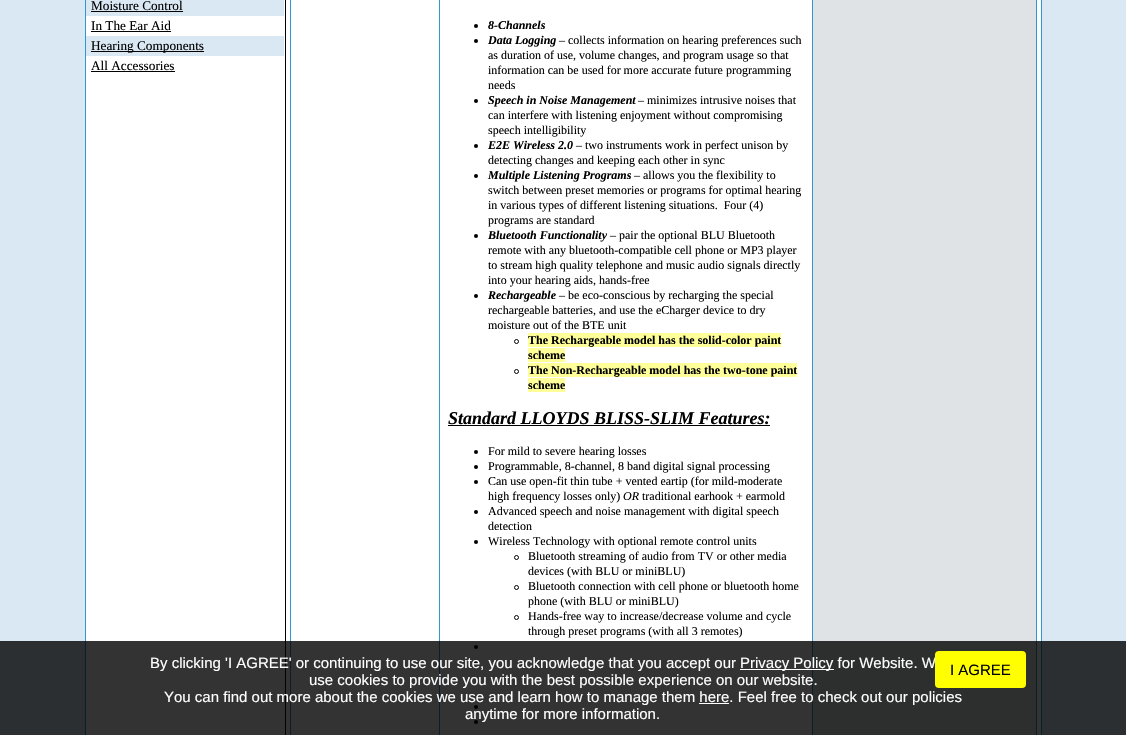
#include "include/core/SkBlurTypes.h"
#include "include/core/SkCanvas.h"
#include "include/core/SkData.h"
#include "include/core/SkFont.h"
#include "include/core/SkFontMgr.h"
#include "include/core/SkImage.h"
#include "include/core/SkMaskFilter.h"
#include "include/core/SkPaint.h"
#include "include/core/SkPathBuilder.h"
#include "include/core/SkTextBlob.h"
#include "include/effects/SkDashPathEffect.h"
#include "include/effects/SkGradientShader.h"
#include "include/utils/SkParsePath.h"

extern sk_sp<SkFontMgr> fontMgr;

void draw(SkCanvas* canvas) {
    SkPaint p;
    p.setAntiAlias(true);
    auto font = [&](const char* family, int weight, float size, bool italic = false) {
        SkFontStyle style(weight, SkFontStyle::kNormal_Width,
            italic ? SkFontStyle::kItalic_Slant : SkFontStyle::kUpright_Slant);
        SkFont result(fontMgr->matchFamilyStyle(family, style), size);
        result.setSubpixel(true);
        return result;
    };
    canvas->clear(0xFFDAE8F3);
    p.setColor(0xFFFFFFFF);
    canvas->drawRect(SkRect::MakeLTRB(85.5f, -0.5f, 1041.5f, 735.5f), p);
    p.setStyle(SkPaint::kStroke_Style);
    p.setStrokeWidth(1);
    p.setColor(0xFF3098D0);
    canvas->drawRect(SkRect::MakeLTRB(85.5f, -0.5f, 1041.5f, 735.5f), p);
    p.setStyle(SkPaint::kFill_Style);
    p.setColor(0xFF000000);
    canvas->drawRect(SkRect::MakeLTRB(285, 0, 286, 735), p);
    p.setColor(0xFFDAE8F3);
    canvas->drawRect(SkRect::MakeLTRB(86, 0, 284, 16), p);
    auto font1 = font("Liberation Serif", 400, 13.25f);
    p.setColor(0xFF000000);
    canvas->drawString("Moisture Control", 91, 10, font1, p);
    canvas->drawRect(SkRect::MakeLTRB(91, 11, 183, 12), p);
    canvas->drawString("In The Ear Aid", 91, 30, font1, p);
    {
        const struct { float l, t, r, b; SkColor color; } items[] = {
            {91, 31, 171, 32, 0xFF000000},
            {86, 36, 284, 56, 0xFFDAE8F3},
            {91, 51, 204, 52, 0xFF000000},
        };
        for (auto [l, t, r, b, color] : items) {
            p.setColor(color);
            canvas->drawRect(SkRect::MakeLTRB(l, t, r, b), p);
        }
    }
    canvas->drawString("Hearing Components", 91, 50, font1, p);
    canvas->drawString("All Accessories", 91, 70, font1, p);
    {
        const struct { float l, t, r, b; SkColor color; } items[] = {
            {91, 71, 175, 72, 0xFF000000},
            {1036, 0, 1037, 735, 0xFF3098D0},
            {290, 0, 291, 735, 0xFF3098D0},
            {439, 0, 440, 735, 0xFF3098D0},
        };
        for (auto [l, t, r, b, color] : items) {
            p.setColor(color);
            canvas->drawRect(SkRect::MakeLTRB(l, t, r, b), p);
        }
    }
    p.setColor(0xFF000000);
    canvas->drawCircle(476, 26, 2, p);
    auto font2 = font("Liberation Serif", 700, 12, true);
    canvas->drawString("8-Channels", 488, 29, font2, p);
    canvas->drawCircle(476, 41, 2, p);
    canvas->drawString("Data Logging", 488, 44, font2, p);
    auto font3 = font("Liberation Serif", 400, 12);
    {
        const struct { const char* s; float x, y; } items[] = {
            {"– collects information on hearing preferences such", 559, 44},
            {"as duration of use, volume changes, and program usage so that", 488, 59},
            {"information can be used for more accurate future programming", 488, 74},
            {"needs", 488, 89},
        };
        for (auto [s, x, y] : items) {
            canvas->drawString(s, x, y, font3, p);
        }
    }
    canvas->drawCircle(476, 101, 2, p);
    canvas->drawString("Speech in Noise Management", 488, 104, font2, p);
    {
        const struct { const char* s; float x, y; } items[] = {
            {"– minimizes intrusive noises that", 638, 104},
            {"can interfere with listening enjoyment without compromising", 488, 119},
            {"speech intelligibility", 488, 134},
        };
        for (auto [s, x, y] : items) {
            canvas->drawString(s, x, y, font3, p);
        }
    }
    canvas->drawCircle(476, 146, 2, p);
    canvas->drawString("E2E Wireless 2.0", 488, 149, font2, p);
    canvas->drawString("– two instruments work in perfect unison by", 576, 149, font3, p);
    canvas->drawString("detecting changes and keeping each other in sync", 488, 164, font3, p);
    canvas->drawCircle(476, 176, 2, p);
    canvas->drawString("Multiple Listening Programs", 488, 179, font2, p);
    {
        const struct { const char* s; float x, y; } items[] = {
            {"– allows you the flexibility to", 634, 179},
            {"switch between preset memories or programs for optimal hearing", 488, 194},
            {"in various types of different listening situations.  Four (4)", 488, 209},
            {"programs are standard", 488, 224},
        };
        for (auto [s, x, y] : items) {
            canvas->drawString(s, x, y, font3, p);
        }
    }
    canvas->drawCircle(476, 236, 2, p);
    canvas->drawString("Bluetooth Functionality", 488, 239, font2, p);
    {
        const struct { const char* s; float x, y; } items[] = {
            {"– pair the optional BLU Bluetooth", 610, 239},
            {"remote with any bluetooth-compatible cell phone or MP3 player", 488, 254},
            {"to stream high quality telephone and music audio signals directly", 488, 269},
            {"into your hearing aids, hands-free", 488, 284},
        };
        for (auto [s, x, y] : items) {
            canvas->drawString(s, x, y, font3, p);
        }
    }
    canvas->drawCircle(476, 296, 2, p);
    canvas->drawString("Rechargeable", 488, 299, font2, p);
    {
        const struct { const char* s; float x, y; } items[] = {
            {"– be eco-conscious by recharging the special", 559, 299},
            {"rechargeable batteries, and use the eCharger device to dry", 488, 314},
            {"moisture out of the BTE unit", 488, 329},
        };
        for (auto [s, x, y] : items) {
            canvas->drawString(s, x, y, font3, p);
        }
    }
    p.setStyle(SkPaint::kStroke_Style);
    canvas->drawCircle(516.5f, 341.5f, 2, p);
    p.setStyle(SkPaint::kFill_Style);
    p.setColor(0xFFFFFF99);
    canvas->drawRect(SkRect::MakeLTRB(528, 333, 781, 347), p);
    auto font4 = font("Liberation Serif", 700, 12);
    p.setColor(0xFF000000);
    canvas->drawString("The Rechargeable model has the solid-color paint", 528, 344, font4, p);
    p.setColor(0xFFFFFF99);
    canvas->drawRect(SkRect::MakeLTRB(528, 348, 565, 362), p);
    p.setColor(0xFF000000);
    canvas->drawString("scheme", 528, 359, font4, p);
    p.setStyle(SkPaint::kStroke_Style);
    canvas->drawCircle(516.5f, 371.5f, 2, p);
    p.setStyle(SkPaint::kFill_Style);
    p.setColor(0xFFFFFF99);
    canvas->drawRect(SkRect::MakeLTRB(528, 363, 797, 377), p);
    p.setColor(0xFF000000);
    canvas->drawString("The Non-Rechargeable model has the two-tone paint", 528, 374, font4, p);
    p.setColor(0xFFFFFF99);
    canvas->drawRect(SkRect::MakeLTRB(528, 378, 565, 392), p);
    p.setColor(0xFF000000);
    canvas->drawString("scheme", 528, 389, font4, p);
    auto font5 = font("Liberation Serif", 700, 18, true);
    canvas->drawString("Standard LLOYDS BLISS-SLIM Features:", 448, 424, font5, p);
    canvas->drawRect(SkRect::MakeLTRB(448, 425, 770, 426), p);
    canvas->drawCircle(476, 452, 2, p);
    canvas->drawString("For mild to severe hearing losses", 488, 455, font3, p);
    canvas->drawCircle(476, 467, 2, p);
    canvas->drawString("Programmable, 8-channel, 8 band digital signal processing", 488, 470, font3, p);
    canvas->drawCircle(476, 482, 2, p);
    canvas->drawString("Can use open-fit thin tube + vented eartip (for mild-moderate", 488, 485, font3, p);
    canvas->drawString("high frequency losses only)", 488, 500, font3, p);
    auto font6 = font("Liberation Serif", 400, 12, true);
    canvas->drawString("OR", 623, 500, font6, p);
    canvas->drawString("traditional earhook + earmold", 642, 500, font3, p);
    canvas->drawCircle(476, 512, 2, p);
    canvas->drawString("Advanced speech and noise management with digital speech", 488, 515, font3, p);
    canvas->drawString("detection", 488, 530, font3, p);
    canvas->drawCircle(476, 542, 2, p);
    canvas->drawString("Wireless Technology with optional remote control units", 488, 545, font3, p);
    p.setStyle(SkPaint::kStroke_Style);
    canvas->drawCircle(516.5f, 557.5f, 2, p);
    p.setStyle(SkPaint::kFill_Style);
    canvas->drawString("Bluetooth streaming of audio from TV or other media", 528, 560, font3, p);
    canvas->drawString("devices (with BLU or miniBLU)", 528, 575, font3, p);
    p.setStyle(SkPaint::kStroke_Style);
    canvas->drawCircle(516.5f, 587.5f, 2, p);
    p.setStyle(SkPaint::kFill_Style);
    canvas->drawString("Bluetooth connection with cell phone or bluetooth home", 528, 590, font3, p);
    canvas->drawString("phone (with BLU or miniBLU)", 528, 605, font3, p);
    p.setStyle(SkPaint::kStroke_Style);
    canvas->drawCircle(516.5f, 617.5f, 2, p);
    p.setStyle(SkPaint::kFill_Style);
    canvas->drawString("Hands-free way to increase/decrease volume and cycle", 528, 620, font3, p);
    canvas->drawString("through preset programs (with all 3 remotes)", 528, 635, font3, p);
    canvas->drawCircle(476, 647, 2, p);
    canvas->drawCircle(476, 662, 2, p);
    canvas->drawCircle(476, 707, 2, p);
    canvas->drawCircle(476, 722, 2, p);
    {
        const struct { float l, t, r, b; SkColor color; } items[] = {
            {813, 0, 1036, 735, 0xFFE0E3E6},
            {812, 0, 813, 735, 0xFF3098D0},
            {0, 641, 1126, 735, 0xCC000000},
        };
        for (auto [l, t, r, b, color] : items) {
            p.setColor(color);
            canvas->drawRect(SkRect::MakeLTRB(l, t, r, b), p);
        }
    }
    auto font7 = font("Liberation Sans", 400, 15);
    p.setColor(0xFFFFFFFF);
    canvas->drawString("By clicking 'I AGREE' or continuing to use our site, you acknowledge that you accept our", 150, 668, font7, p);
    canvas->drawRect(SkRect::MakeLTRB(740, 669, 834, 670), p);
    canvas->drawString("Privacy Policy for Website. W", 740, 668, font7, p);
    p.setColor(0xFFFFFF00);
    canvas->drawRoundRect(SkRect::MakeLTRB(935, 651, 1026, 688), 4, 4, p);
    p.setColor(0xFF000000);
    canvas->drawString("I AGREE", 950, 675, font7, p);
    p.setColor(0xFFFFFFFF);
    canvas->drawString("use cookies to provide you with the best possible experience on our website.", 309, 685, font7, p);
    canvas->drawString("You can find out more about the cookies we use and learn how to manage them here. Feel free to check out our policies", 164, 702, font7, p);
    canvas->drawRect(SkRect::MakeLTRB(699, 703, 729, 704), p);
    canvas->drawString("anytime for more information.", 465, 719, font7, p);
}
